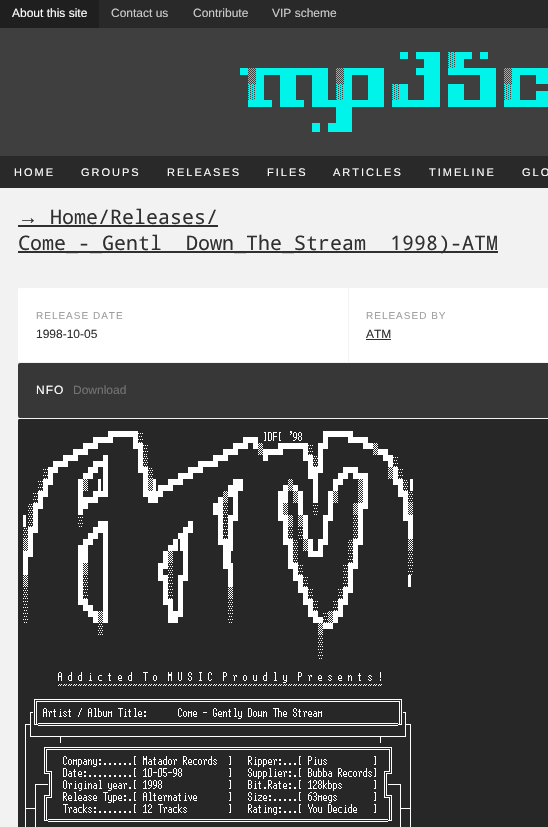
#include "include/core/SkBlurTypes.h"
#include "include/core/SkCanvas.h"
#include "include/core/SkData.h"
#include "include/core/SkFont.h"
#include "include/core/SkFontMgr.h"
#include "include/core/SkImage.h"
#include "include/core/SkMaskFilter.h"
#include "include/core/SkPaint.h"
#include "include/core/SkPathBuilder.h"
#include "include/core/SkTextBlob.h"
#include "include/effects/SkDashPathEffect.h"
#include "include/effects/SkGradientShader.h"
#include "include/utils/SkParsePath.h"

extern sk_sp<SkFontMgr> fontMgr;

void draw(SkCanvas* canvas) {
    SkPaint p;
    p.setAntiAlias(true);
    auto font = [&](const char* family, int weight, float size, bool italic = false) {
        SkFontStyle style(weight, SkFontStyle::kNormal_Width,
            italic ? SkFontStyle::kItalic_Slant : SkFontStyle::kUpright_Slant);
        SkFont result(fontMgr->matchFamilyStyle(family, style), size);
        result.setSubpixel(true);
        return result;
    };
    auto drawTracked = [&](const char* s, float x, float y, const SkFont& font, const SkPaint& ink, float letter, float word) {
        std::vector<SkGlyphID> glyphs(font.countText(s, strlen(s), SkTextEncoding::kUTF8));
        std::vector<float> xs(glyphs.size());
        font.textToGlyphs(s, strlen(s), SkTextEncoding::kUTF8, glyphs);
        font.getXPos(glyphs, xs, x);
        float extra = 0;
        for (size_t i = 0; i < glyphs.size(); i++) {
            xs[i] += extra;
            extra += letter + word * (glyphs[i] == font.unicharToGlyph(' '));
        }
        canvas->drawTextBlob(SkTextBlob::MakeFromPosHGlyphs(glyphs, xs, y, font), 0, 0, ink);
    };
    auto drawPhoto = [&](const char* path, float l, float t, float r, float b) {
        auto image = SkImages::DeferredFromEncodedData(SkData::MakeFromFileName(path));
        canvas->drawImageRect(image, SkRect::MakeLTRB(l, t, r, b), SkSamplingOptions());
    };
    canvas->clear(0xFF3F3F3F);
    p.setColor(0xFF292929);
    canvas->drawRect(SkRect::MakeLTRB(99, 0, 548, 28), p);
    p.setColor(0xFF1F1F1F);
    canvas->drawRect(SkRect::MakeLTRB(0, 0, 99, 28), p);
    auto font1 = font("Liberation Sans", 400, 12);
    p.setColor(0xFFFFFFFF);
    canvas->drawString("About this site", 12, 17, font1, p);
    p.setColor(0xFFCCCCCC);
    {
        const struct { const char* s; float x, y; } items[] = {
            {"Contact us", 111, 17},
            {"Contribute", 193, 17},
            {"VIP scheme", 272, 17},
        };
        for (auto [s, x, y] : items) {
            canvas->drawString(s, x, y, font1, p);
        }
    }
    drawPhoto("media/1.png", 240, 52, 548, 132);
    p.setColor(0xFF292929);
    canvas->drawRect(SkRect::MakeLTRB(0, 156, 548, 188), p);
    auto font2 = font("Liberation Sans", 400, 11);
    p.setColor(0xFFFFFFFF);
    {
        const struct { const char* s; float x, y; } items[] = {
            {"HOME", 14, 176},
            {"GROUPS", 81, 176},
            {"RELEASES", 167, 176},
            {"FILES", 267, 176},
            {"ARTICLES", 333, 176},
            {"TIMELINE", 429, 176},
            {"GLO", 522, 176},
        };
        for (auto [s, x, y] : items) {
            drawTracked(s, x, y, font2, p, 2, 0);
        }
    }
    p.setColor(0xFFF2F2F2);
    canvas->drawRect(SkRect::MakeLTRB(0, 188, 548, 827), p);
    auto font3 = font("Liberation Serif", 400, 20);
    p.setColor(0xFF303030);
    canvas->drawString("→", 18, 224, font3, p);
    canvas->drawRect(SkRect::MakeLTRB(18, 225, 218, 227), p);
    auto font4 = font("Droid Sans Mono", 400, 20);
    canvas->drawString("Home/Releases/", 50, 224, font4, p);
    canvas->drawRect(SkRect::MakeLTRB(18, 251, 498, 253), p);
    {
        const struct { const char* s; float x, y; } items[] = {
            {"Come_-_Gentl", 18, 250},
            {"Down_The_Stream", 186, 250},
            {"1998)-ATM", 390, 250},
        };
        for (auto [s, x, y] : items) {
            canvas->drawString(s, x, y, font4, p);
        }
    }
    p.setColor(0xFFFFFFFF);
    canvas->drawRoundRect(SkRect::MakeLTRB(18, 288, 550, 362), 2, 2, p);
    p.setColor(0xFFF2F2F2);
    canvas->drawRect(SkRect::MakeLTRB(348, 288, 349, 362), p);
    auto font5 = font("Liberation Sans", 400, 10);
    p.setColor(0xFF9F9F9F);
    drawTracked("RELEASE DATE", 36, 319, font5, p, 1, 0);
    p.setColor(0xFF303030);
    canvas->drawString("1998-10-05", 36, 338, font1, p);
    p.setColor(0xFF9F9F9F);
    drawTracked("RELEASED BY", 366, 319, font5, p, 1, 0);
    p.setColor(0xFF303030);
    canvas->drawString("ATM", 366, 338, font1, p);
    canvas->drawRect(SkRect::MakeLTRB(366, 339, 391, 340), p);
    p.setColor(0xFF373737);
    canvas->drawRoundRect(SkRect::MakeLTRB(18, 363, 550, 418), 2, 2, p);
    p.setColor(0xFFFFFFFF);
    drawTracked("NFO", 36, 394, font1, p, 1, 0);
    p.setColor(0xFF737373);
    canvas->drawString("Download", 73, 394, font1, p);
    p.setColor(0xFF272727);
    canvas->drawRoundRect(SkRect::MakeLTRB(18, 419, 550, 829), 2, 2, p);
    drawPhoto("media/2.png", 18, 419, 413, 827);
}
